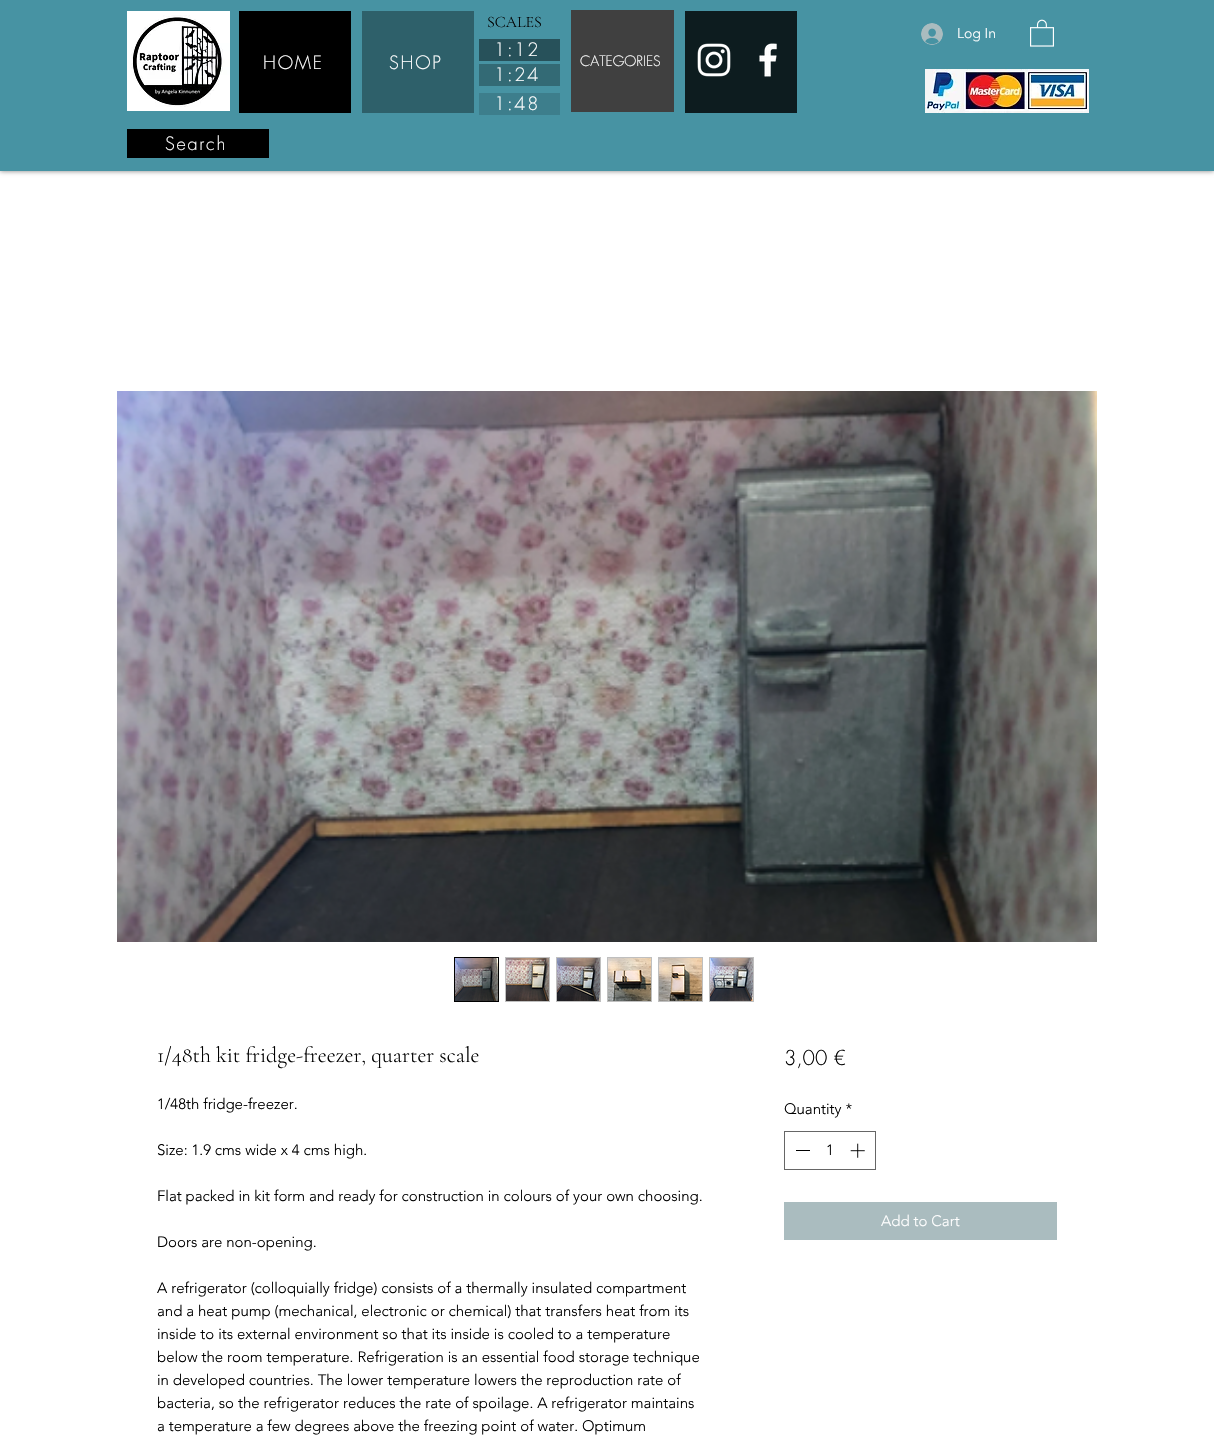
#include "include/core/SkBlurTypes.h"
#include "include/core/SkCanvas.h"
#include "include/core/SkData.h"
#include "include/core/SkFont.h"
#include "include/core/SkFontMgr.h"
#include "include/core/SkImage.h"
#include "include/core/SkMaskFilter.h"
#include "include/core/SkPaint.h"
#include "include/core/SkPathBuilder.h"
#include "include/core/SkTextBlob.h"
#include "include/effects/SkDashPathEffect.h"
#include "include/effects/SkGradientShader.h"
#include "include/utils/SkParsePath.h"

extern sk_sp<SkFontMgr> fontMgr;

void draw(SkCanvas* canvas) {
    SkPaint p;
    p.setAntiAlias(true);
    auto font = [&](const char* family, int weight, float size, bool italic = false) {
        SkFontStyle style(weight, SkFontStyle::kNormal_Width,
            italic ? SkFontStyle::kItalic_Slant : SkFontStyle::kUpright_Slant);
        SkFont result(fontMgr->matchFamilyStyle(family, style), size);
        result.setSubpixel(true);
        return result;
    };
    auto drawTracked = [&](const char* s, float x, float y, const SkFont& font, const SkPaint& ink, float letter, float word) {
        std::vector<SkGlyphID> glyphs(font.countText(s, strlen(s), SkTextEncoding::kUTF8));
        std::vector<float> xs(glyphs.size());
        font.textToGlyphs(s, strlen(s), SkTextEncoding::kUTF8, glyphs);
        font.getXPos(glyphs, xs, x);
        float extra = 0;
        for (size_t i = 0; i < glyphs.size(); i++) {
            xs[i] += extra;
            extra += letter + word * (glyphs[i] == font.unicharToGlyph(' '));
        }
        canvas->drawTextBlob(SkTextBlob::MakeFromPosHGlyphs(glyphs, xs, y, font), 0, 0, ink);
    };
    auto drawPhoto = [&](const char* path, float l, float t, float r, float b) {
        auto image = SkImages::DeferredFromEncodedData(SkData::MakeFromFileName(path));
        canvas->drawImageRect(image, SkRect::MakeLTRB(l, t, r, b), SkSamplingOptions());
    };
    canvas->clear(0xFFFFFFFF);
    p.setColor(0x80000000);
    p.setMaskFilter(SkMaskFilter::MakeBlur(kNormal_SkBlurStyle, 2.5f));
    canvas->drawRect(SkRect::MakeLTRB(0, 0, 1214, 171), p);
    p.setMaskFilter(nullptr);
    p.setColor(0xFF4793A3);
    canvas->drawRect(SkRect::MakeLTRB(0, 0, 1214, 171), p);
    drawPhoto("media/1.png", 127, 11, 230, 111);
    auto font1 = font("Cormorant Garamond", 300, 16);
    p.setColor(0xFF000000);
    canvas->drawString("SCALES", 487, 27, font1, p);
    p.setColor(0xFF0D1C1F);
    canvas->drawRect(SkRect::MakeLTRB(685, 11, 797, 113), p);
    drawPhoto("media/2.png", 697, 43, 731, 77);
    drawPhoto("media/3.png", 759, 43, 777, 77);
    drawPhoto("media/4.png", 921, 23, 943, 45);
    auto font2 = font("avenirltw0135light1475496", 300, 14);
    p.setColor(0xFFFFFFFF);
    canvas->drawString("Log In", 957, 38, font2, p);
    drawPhoto("media/5.png", 1030, 19, 1054, 47);
    p.setColor(0xFF27515A);
    canvas->drawRect(SkRect::MakeLTRB(479, 39, 560, 61), p);
    auto font3 = font("futura", 300, 18);
    p.setColor(0xFFFFFFFF);
    drawTracked("1:12", 494, 56, font3, p, 1.75f, 0);
    p.setColor(0xFF000000);
    canvas->drawRect(SkRect::MakeLTRB(239, 11, 351, 113), p);
    p.setColor(0xFFFFFFFF);
    drawTracked("HOME", 263, 69, font3, p, 1.75f, 0);
    p.setColor(0xFF2E606A);
    canvas->drawRect(SkRect::MakeLTRB(362, 11, 474, 113), p);
    p.setColor(0xFFFFFFFF);
    drawTracked("SHOP", 389, 69, font3, p, 1.75f, 0);
    p.setColor(0xFF404040);
    canvas->drawRect(SkRect::MakeLTRB(571, 10, 674, 112), p);
    auto font4 = font("futura", 300, 14);
    p.setColor(0xFFFFFFFF);
    canvas->drawString("CATEGORIES", 580, 66, font4, p);
    p.setColor(0xFF336A75);
    canvas->drawRect(SkRect::MakeLTRB(479, 64, 560, 86), p);
    p.setColor(0xFFFFFFFF);
    drawTracked("1:24", 494, 81, font3, p, 1.75f, 0);
    drawPhoto("media/6.png", 925, 69, 1089, 113);
    p.setColor(0xFF3D7E8C);
    canvas->drawRect(SkRect::MakeLTRB(479, 93, 560, 115), p);
    p.setColor(0xFFFFFFFF);
    drawTracked("1:48", 494, 110, font3, p, 1.75f, 0);
    p.setColor(0xFF000000);
    canvas->drawRect(SkRect::MakeLTRB(127, 129, 269, 158), p);
    p.setColor(0xFFFFFFFF);
    drawTracked("Search", 165, 150, font3, p, 1.75f, 0);
    drawPhoto("media/7.png", 117, 391, 1097, 942);
    p.setStyle(SkPaint::kStroke_Style);
    p.setStrokeWidth(1);
    p.setColor(0xFF000000);
    canvas->drawRect(SkRect::MakeLTRB(454.5f, 957.5f, 498.5f, 1001.5f), p);
    drawPhoto("media/8.png", 455, 958, 498, 1001);
    p.setColor(0xFFBFBFBF);
    canvas->drawRect(SkRect::MakeLTRB(505.5f, 957.5f, 549.5f, 1001.5f), p);
    drawPhoto("media/9.png", 506, 958, 549, 1001);
    canvas->drawRect(SkRect::MakeLTRB(556.5f, 957.5f, 600.5f, 1001.5f), p);
    drawPhoto("media/10.png", 557, 958, 600, 1001);
    canvas->drawRect(SkRect::MakeLTRB(607.5f, 957.5f, 651.5f, 1001.5f), p);
    drawPhoto("media/11.png", 608, 958, 651, 1001);
    canvas->drawRect(SkRect::MakeLTRB(658.5f, 957.5f, 702.5f, 1001.5f), p);
    drawPhoto("media/12.png", 659, 958, 702, 1001);
    canvas->drawRect(SkRect::MakeLTRB(709.5f, 957.5f, 753.5f, 1001.5f), p);
    drawPhoto("media/13.png", 710, 958, 753, 1001);
    auto font5 = font("Cormorant Garamond", 300, 22);
    p.setStyle(SkPaint::kFill_Style);
    p.setColor(0xFF000000);
    canvas->drawString("1/48th kit fridge-freezer, quarter scale", 157, 1062, font5, p);
    auto font6 = font("avenirltw0135light1475496", 300, 15);
    {
        const struct { const char* s; float x, y; } items[] = {
            {"1/48th fridge-freezer.", 157, 1109},
            {"Size: 1.9 cms wide x 4 cms high.", 157, 1155},
            {"Flat packed in kit form and ready for construction in colours of your own choosing.", 157, 1201},
            {"Doors are non-opening.", 157, 1247},
            {"A refrigerator (colloquially fridge) consists of a thermally insulated compartment", 157, 1293},
            {"and a heat pump (mechanical, electronic or chemical) that transfers heat from its", 157, 1316},
            {"inside to its external environment so that its inside is cooled to a temperature", 157, 1339},
            {"below the room temperature. Refrigeration is an essential food storage technique", 157, 1362},
            {"in developed countries. The lower temperature lowers the reproduction rate of", 157, 1385},
            {"bacteria, so the refrigerator reduces the rate of spoilage. A refrigerator maintains", 157, 1408},
            {"a temperature a few degrees above the freezing point of water. Optimum", 157, 1431},
        };
        for (auto [s, x, y] : items) {
            canvas->drawString(s, x, y, font6, p);
        }
    }
    auto font7 = font("futura", 300, 20);
    canvas->drawString("3,00 €", 784, 1065, font7, p);
    canvas->drawString("Quantity *", 784, 1114, font6, p);
    p.setStyle(SkPaint::kStroke_Style);
    p.setColor(0xFF666666);
    canvas->drawRect(SkRect::MakeLTRB(784.5f, 1131.5f, 875.5f, 1169.5f), p);
    p.setStyle(SkPaint::kFill_Style);
    p.setColor(0xFF000000);
    canvas->drawRect(SkRect::MakeLTRB(796, 1150, 810, 1151), p);
    canvas->drawString("1", 826, 1155, font6, p);
    drawPhoto("media/14.png", 850, 1143, 865, 1158);
    p.setColor(0xFFAABCBF);
    canvas->drawRect(SkRect::MakeLTRB(784, 1202, 1057, 1240), p);
    p.setColor(0xFFFFFFFF);
    canvas->drawString("Add to Cart", 881, 1226, font6, p);
}
